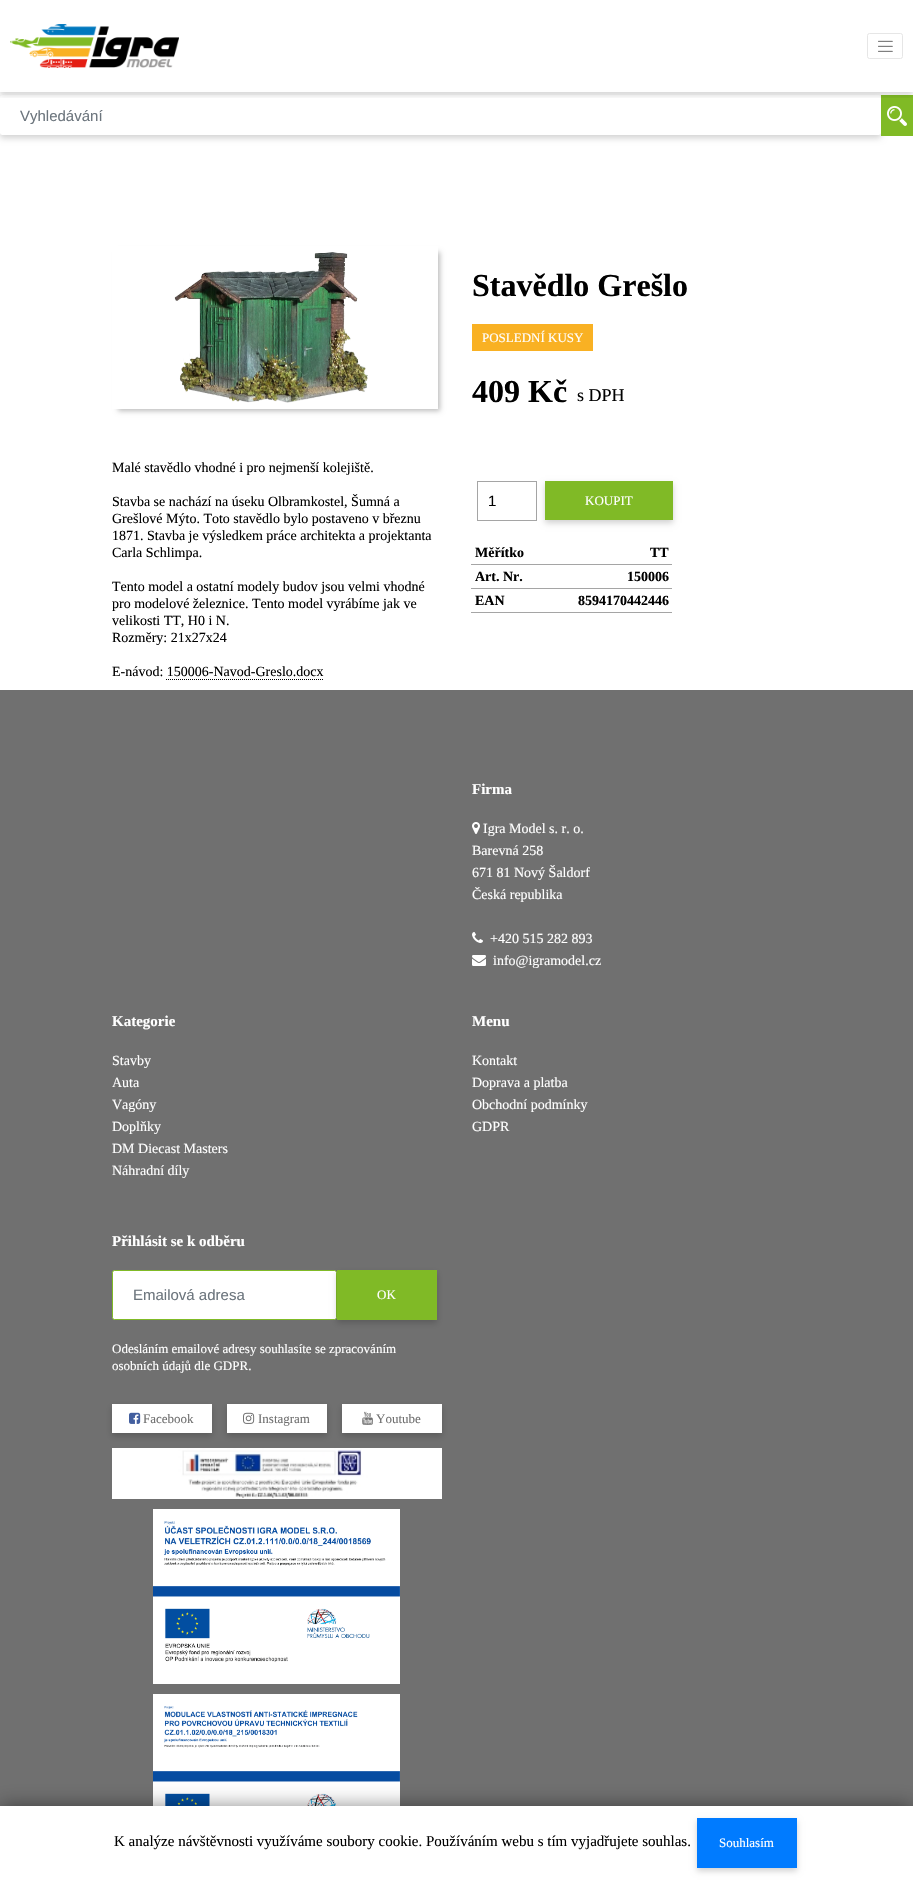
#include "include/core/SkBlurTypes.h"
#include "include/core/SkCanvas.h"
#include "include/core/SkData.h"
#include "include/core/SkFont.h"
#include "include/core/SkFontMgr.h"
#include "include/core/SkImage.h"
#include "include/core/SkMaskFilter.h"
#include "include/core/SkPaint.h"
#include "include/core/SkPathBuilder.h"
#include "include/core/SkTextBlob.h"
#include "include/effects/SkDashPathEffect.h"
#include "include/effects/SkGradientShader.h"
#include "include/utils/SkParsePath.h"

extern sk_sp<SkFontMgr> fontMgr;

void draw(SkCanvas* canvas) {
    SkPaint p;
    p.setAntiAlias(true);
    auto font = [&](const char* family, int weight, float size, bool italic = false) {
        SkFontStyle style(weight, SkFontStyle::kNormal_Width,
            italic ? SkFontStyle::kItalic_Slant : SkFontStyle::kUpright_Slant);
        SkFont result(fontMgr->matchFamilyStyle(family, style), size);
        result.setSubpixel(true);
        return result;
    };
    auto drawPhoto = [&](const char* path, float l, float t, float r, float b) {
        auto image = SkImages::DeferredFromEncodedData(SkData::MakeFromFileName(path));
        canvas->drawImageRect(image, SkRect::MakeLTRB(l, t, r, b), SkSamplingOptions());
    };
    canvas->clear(0xFFFFFFFF);
    p.setColor(0x2E000000);
    p.setMaskFilter(SkMaskFilter::MakeBlur(kNormal_SkBlurStyle, 3));
    canvas->drawRoundRect(SkRect::MakeLTRB(0, 98, 881, 138), 2.5f, 2.5f, p);
    p.setMaskFilter(nullptr);
    p.setColor(0xFFFFFFFF);
    canvas->drawRoundRect(SkRect::MakeLTRB(0, 95, 881, 135), 2.5f, 2.5f, p);
    p.setColor(0xFF80BA25);
    canvas->drawRect(SkRect::MakeLTRB(881, 95, 913, 136), p);
    canvas->save();
    canvas->clipRect(SkRect::MakeLTRB(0, 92, 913, 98));
    p.setColor(0x29000000);
    p.setMaskFilter(SkMaskFilter::MakeBlur(kNormal_SkBlurStyle, 3));
    canvas->drawRect(SkRect::MakeLTRB(0, 3, 913, 95), p);
    p.setMaskFilter(nullptr);
    canvas->restore();
    drawPhoto("media/1.png", 10, 24, 179, 68);
    p.setStyle(SkPaint::kStroke_Style);
    p.setStrokeWidth(1);
    p.setColor(0xFFE6E6E6);
    canvas->drawRoundRect(SkRect::MakeLTRB(867.5f, 33.5f, 902.5f, 58.5f), 2, 2, p);
    drawPhoto("media/2.png", 878, 40, 893, 52);
    auto font1 = font("Liberation Sans", 400, 15);
    p.setStyle(SkPaint::kFill_Style);
    p.setColor(0xFF6C757D);
    canvas->drawString("Vyhledávání", 20, 121, font1, p);
    drawPhoto("media/3.png", 887, 106, 907, 126);
    canvas->save();
    canvas->clipPath(SkPathBuilder(SkPathFillType::kEvenOdd).moveTo(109, 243).lineTo(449, 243).lineTo(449, 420).lineTo(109, 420).close().moveTo(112, 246).lineTo(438, 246).lineTo(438, 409).lineTo(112, 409).close().detach(), true);
    p.setColor(0x42000000);
    p.setMaskFilter(SkMaskFilter::MakeBlur(kNormal_SkBlurStyle, 2.5f));
    canvas->drawRect(SkRect::MakeLTRB(118, 252, 440, 411), p);
    p.setMaskFilter(nullptr);
    canvas->restore();
    drawPhoto("media/4.png", 174, 252, 368, 403);
    auto font2 = font("Liberation Serif", 400, 14);
    p.setColor(0xFF000000);
    {
        const struct { const char* s; float x, y; } items[] = {
            {"Malé stavědlo vhodné i pro nejmenší kolejiště.", 112, 472},
            {"Stavba se nachází na úseku Olbramkostel, Šumná a", 112, 506},
            {"Grešlové Mýto. Toto stavědlo bylo postaveno v březnu", 112, 523},
            {"1871. Stavba je výsledkem práce architekta a projektanta", 112, 540},
            {"Carla Schlimpa.", 112, 557},
            {"Tento model a ostatní modely budov jsou velmi vhodné", 112, 591},
            {"pro modelové železnice. Tento model vyrábíme jak ve", 112, 608},
            {"velikosti TT, H0 i N.", 112, 625},
            {"Rozměry: 21x27x24", 112, 642},
            {"E-návod: 150006-Navod-Greslo.docx", 112, 676},
        };
        for (auto [s, x, y] : items) {
            canvas->drawString(s, x, y, font2, p);
        }
    }
    p.setStyle(SkPaint::kStroke_Style);
    p.setPathEffect(SkDashPathEffect::Make({{1, 1}}, 0));
    canvas->drawPath(SkPathBuilder().moveTo(166, 679.5f).lineTo(323, 679.5f).detach(), p);
    p.setPathEffect(nullptr);
    auto font3 = font("Liberation Serif", 700, 32);
    p.setStyle(SkPaint::kFill_Style);
    canvas->drawString("Stavědlo Grešlo", 472, 296, font3, p);
    p.setColor(0xFFF9B123);
    canvas->drawRect(SkRect::MakeLTRB(472, 324, 593, 351), p);
    auto font4 = font("Liberation Serif", 400, 13);
    p.setColor(0xFFFFFFFF);
    canvas->drawString("POSLEDNÍ KUSY", 482, 342, font4, p);
    p.setColor(0xFF000000);
    canvas->drawString("409 Kč", 472, 402, font3, p);
    auto font5 = font("Liberation Serif", 400, 18);
    canvas->drawString("s DPH", 577, 401, font5, p);
    p.setStyle(SkPaint::kStroke_Style);
    p.setColor(0xFFA5A5A5);
    canvas->drawRect(SkRect::MakeLTRB(477.5f, 481.5f, 536.5f, 520.5f), p);
    p.setStyle(SkPaint::kFill_Style);
    p.setColor(0xFF000000);
    canvas->drawString("1", 488, 506, font1, p);
    p.setColor(0x2E000000);
    p.setMaskFilter(SkMaskFilter::MakeBlur(kNormal_SkBlurStyle, 3));
    canvas->drawRect(SkRect::MakeLTRB(545, 484, 673, 523), p);
    p.setMaskFilter(nullptr);
    p.setColor(0xFF80BA26);
    canvas->drawRect(SkRect::MakeLTRB(545, 481, 673, 520), p);
    p.setColor(0xFFFFFFFF);
    canvas->drawString("KOUPIT", 585, 505, font4, p);
    p.setColor(0xFFA5A5A5);
    canvas->drawRect(SkRect::MakeLTRB(471, 564, 672, 565), p);
    auto font6 = font("Liberation Serif", 700, 14);
    p.setColor(0xFF000000);
    canvas->drawString("Měřítko", 475, 557, font6, p);
    canvas->drawString("TT", 650, 557, font6, p);
    p.setColor(0xFFA5A5A5);
    canvas->drawRect(SkRect::MakeLTRB(471, 588, 672, 589), p);
    p.setColor(0xFF000000);
    canvas->drawString("Art. Nr.", 475, 581, font6, p);
    canvas->drawString("150006", 627, 581, font6, p);
    p.setColor(0xFFA5A5A5);
    canvas->drawRect(SkRect::MakeLTRB(471, 612, 672, 613), p);
    p.setColor(0xFF000000);
    canvas->drawString("EAN", 475, 605, font6, p);
    canvas->drawString("8594170442446", 578, 605, font6, p);
    p.setColor(0xFF707070);
    canvas->drawRect(SkRect::MakeLTRB(0, 690, 913, 1806), p);
    auto font7 = font("Liberation Serif", 700, 15);
    p.setColor(0xFFFFFFFF);
    canvas->drawString("Firma", 472, 794, font7, p);
    drawPhoto("media/5.png", 472, 822, 480, 834);
    {
        const struct { const char* s; float x, y; } items[] = {
            {"Igra Model s. r. o.", 483, 833},
            {"Barevná 258", 472, 855},
            {"671 81 Nový Šaldorf", 472, 877},
            {"Česká republika", 472, 899},
        };
        for (auto [s, x, y] : items) {
            canvas->drawString(s, x, y, font2, p);
        }
    }
    drawPhoto("media/6.png", 472, 932, 483, 943);
    canvas->drawString("+420 515 282 893", 490, 943, font2, p);
    drawPhoto("media/7.png", 472, 955, 486, 966);
    canvas->drawString("info@igramodel.cz", 493, 965, font2, p);
    canvas->drawString("Kategorie", 112, 1026, font7, p);
    {
        const struct { const char* s; float x, y; } items[] = {
            {"Stavby", 112, 1065},
            {"Auta", 112, 1087},
            {"Vagóny", 112, 1109},
            {"Doplňky", 112, 1131},
            {"DM Diecast Masters", 112, 1153},
            {"Náhradní díly", 112, 1175},
        };
        for (auto [s, x, y] : items) {
            canvas->drawString(s, x, y, font2, p);
        }
    }
    canvas->drawString("Menu", 472, 1026, font7, p);
    {
        const struct { const char* s; float x, y; } items[] = {
            {"Kontakt", 472, 1065},
            {"Doprava a platba", 472, 1087},
            {"Obchodní podmínky", 472, 1109},
            {"GDPR", 472, 1131},
        };
        for (auto [s, x, y] : items) {
            canvas->drawString(s, x, y, font2, p);
        }
    }
    canvas->drawString("Přihlásit se k odběru", 112, 1246, font7, p);
    canvas->drawRoundRect(SkRect::MakeLTRB(112.5f, 1270.5f, 336.5f, 1319.5f), 2, 2, p);
    p.setStyle(SkPaint::kStroke_Style);
    p.setColor(0xFF80BA26);
    canvas->drawRoundRect(SkRect::MakeLTRB(112.5f, 1270.5f, 336.5f, 1319.5f), 2, 2, p);
    p.setStyle(SkPaint::kFill_Style);
    p.setColor(0xFF6C757D);
    canvas->drawString("Emailová adresa", 133, 1300, font1, p);
    p.setColor(0x2E000000);
    p.setMaskFilter(SkMaskFilter::MakeBlur(kNormal_SkBlurStyle, 3));
    canvas->drawRect(SkRect::MakeLTRB(337, 1273, 437, 1323), p);
    p.setMaskFilter(nullptr);
    p.setColor(0xFF80BA26);
    canvas->drawRect(SkRect::MakeLTRB(337, 1270, 437, 1320), p);
    p.setColor(0xFFFFFFFF);
    {
        const struct { const char* s; float x, y; } items[] = {
            {"OK", 377, 1299},
            {"Odesláním emailové adresy souhlasíte se zpracováním", 112, 1353},
            {"osobních údajů dle GDPR.", 112, 1370},
        };
        for (auto [s, x, y] : items) {
            canvas->drawString(s, x, y, font4, p);
        }
    }
    p.setColor(0x2E000000);
    p.setMaskFilter(SkMaskFilter::MakeBlur(kNormal_SkBlurStyle, 3));
    canvas->drawRect(SkRect::MakeLTRB(112, 1407, 212, 1436), p);
    p.setMaskFilter(nullptr);
    p.setColor(0xFFFFFFFF);
    canvas->drawRect(SkRect::MakeLTRB(112, 1404, 212, 1433), p);
    drawPhoto("media/8.png", 129, 1412, 141, 1424);
    p.setColor(0xFF707070);
    canvas->drawString("Facebook", 143, 1423, font4, p);
    p.setColor(0x2E000000);
    p.setMaskFilter(SkMaskFilter::MakeBlur(kNormal_SkBlurStyle, 3));
    canvas->drawRect(SkRect::MakeLTRB(227, 1407, 327, 1436), p);
    p.setMaskFilter(nullptr);
    p.setColor(0xFFFFFFFF);
    canvas->drawRect(SkRect::MakeLTRB(227, 1404, 327, 1433), p);
    drawPhoto("media/9.png", 243, 1412, 255, 1424);
    p.setColor(0xFF707070);
    canvas->drawString("Instagram", 258, 1423, font4, p);
    p.setColor(0x2E000000);
    p.setMaskFilter(SkMaskFilter::MakeBlur(kNormal_SkBlurStyle, 3));
    canvas->drawRect(SkRect::MakeLTRB(342, 1407, 442, 1436), p);
    p.setMaskFilter(nullptr);
    p.setColor(0xFFFFFFFF);
    canvas->drawRect(SkRect::MakeLTRB(342, 1404, 442, 1433), p);
    drawPhoto("media/10.png", 362, 1411, 373, 1425);
    p.setColor(0xFF707070);
    canvas->drawString("Youtube", 376, 1423, font4, p);
    drawPhoto("media/11.png", 112, 1448, 442, 1499);
    drawPhoto("media/12.png", 153, 1509, 400, 1684);
    drawPhoto("media/13.png", 153, 1694, 400, 1806);
    p.setColor(0x73000000);
    p.setMaskFilter(SkMaskFilter::MakeBlur(kNormal_SkBlurStyle, 9.5f));
    canvas->drawRect(SkRect::MakeLTRB(0, 1806, 913, 1880), p);
    p.setMaskFilter(nullptr);
    p.setColor(0xFFFFFFFF);
    canvas->drawRect(SkRect::MakeLTRB(0, 1806, 913, 1880), p);
    auto font8 = font("Liberation Serif", 400, 15);
    p.setColor(0xFF000000);
    canvas->drawString("K analýze návštěvnosti využíváme soubory cookie. Používáním webu s tím vyjadřujete souhlas.", 114, 1846, font8, p);
    p.setColor(0x2E000000);
    p.setMaskFilter(SkMaskFilter::MakeBlur(kNormal_SkBlurStyle, 3));
    canvas->drawRect(SkRect::MakeLTRB(697, 1821, 797, 1871), p);
    p.setMaskFilter(nullptr);
    p.setColor(0xFF007BFF);
    canvas->drawRect(SkRect::MakeLTRB(697, 1818, 797, 1868), p);
    p.setColor(0xFFFFFFFF);
    canvas->drawString("Souhlasím", 719, 1847, font4, p);
}
